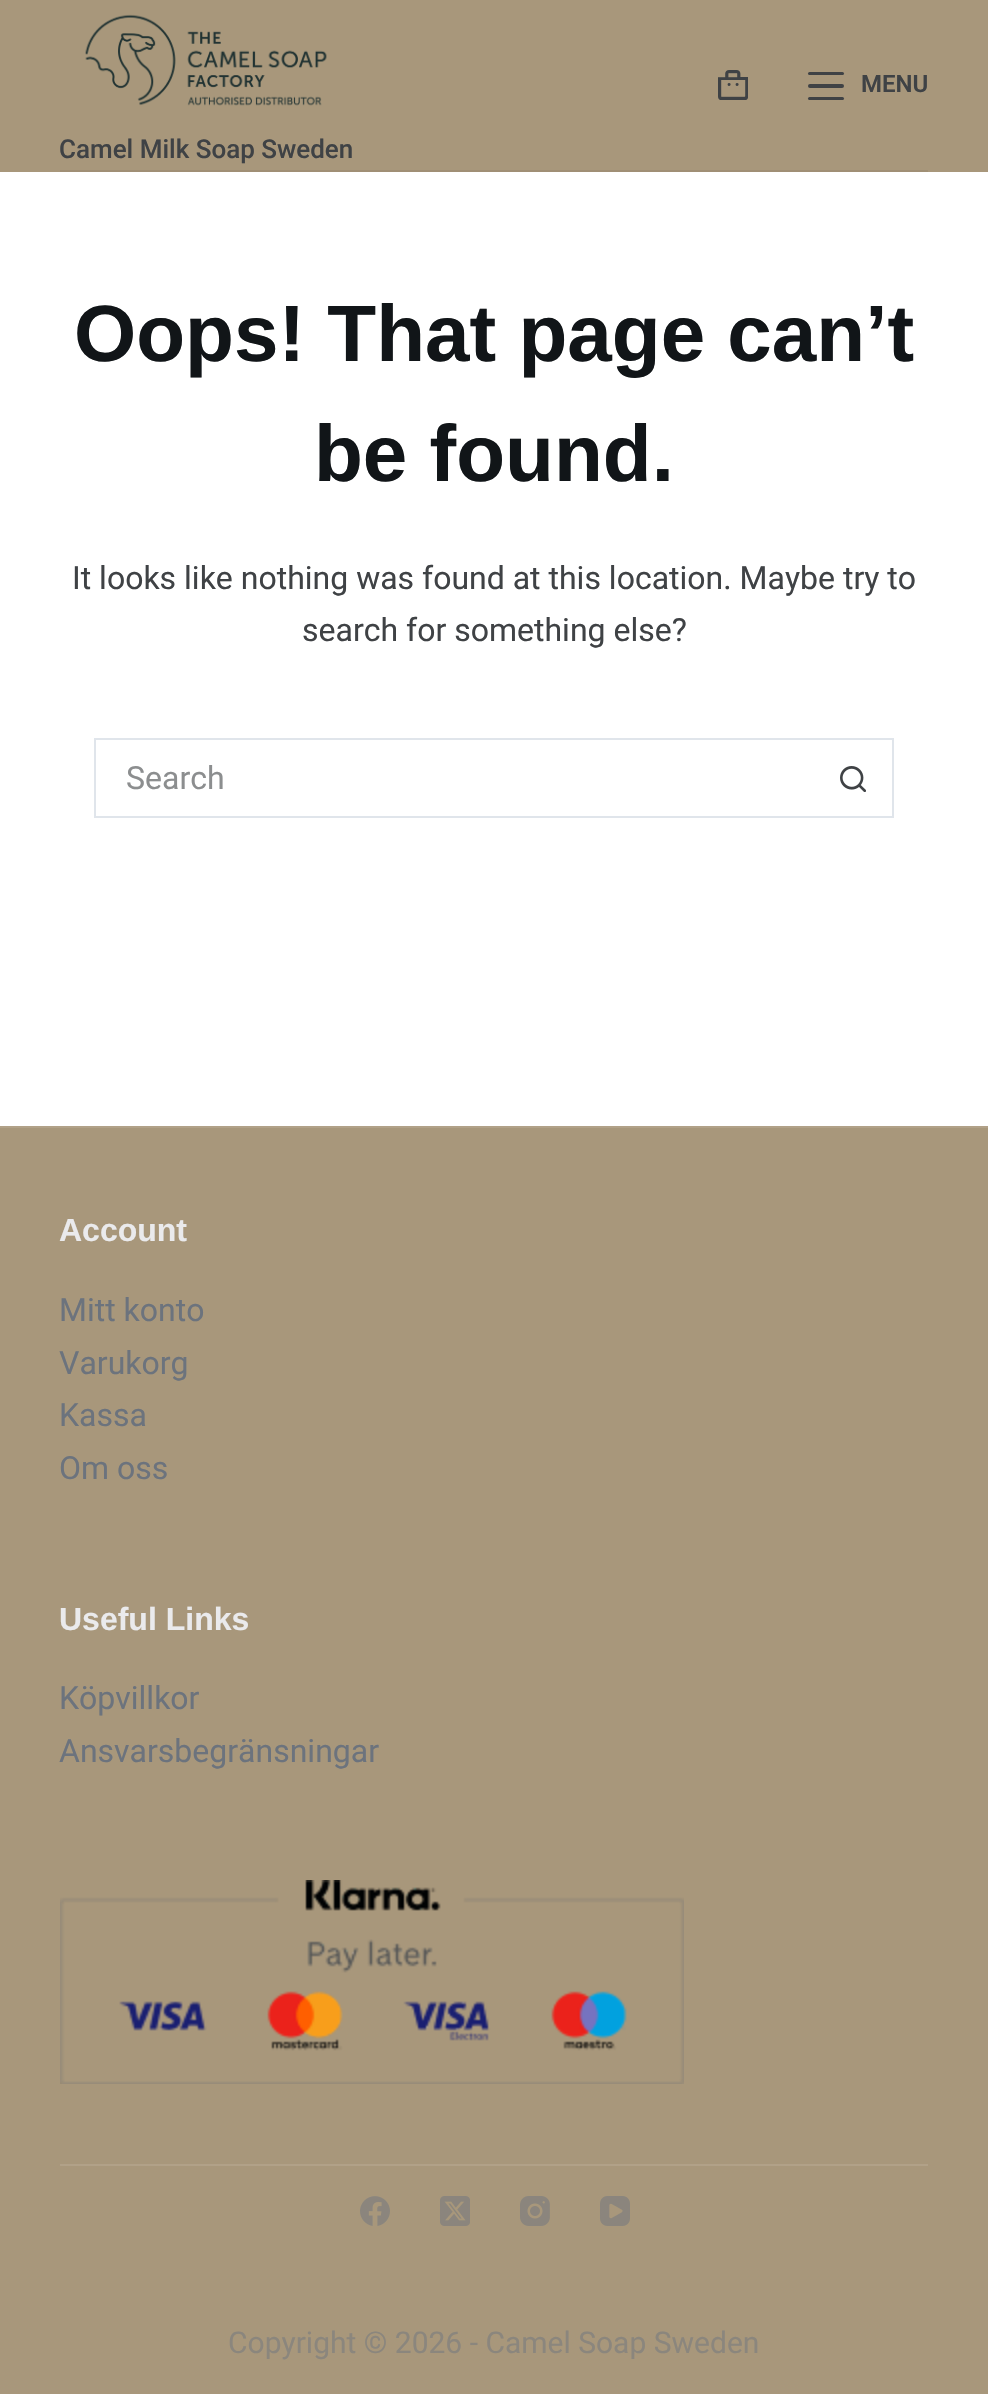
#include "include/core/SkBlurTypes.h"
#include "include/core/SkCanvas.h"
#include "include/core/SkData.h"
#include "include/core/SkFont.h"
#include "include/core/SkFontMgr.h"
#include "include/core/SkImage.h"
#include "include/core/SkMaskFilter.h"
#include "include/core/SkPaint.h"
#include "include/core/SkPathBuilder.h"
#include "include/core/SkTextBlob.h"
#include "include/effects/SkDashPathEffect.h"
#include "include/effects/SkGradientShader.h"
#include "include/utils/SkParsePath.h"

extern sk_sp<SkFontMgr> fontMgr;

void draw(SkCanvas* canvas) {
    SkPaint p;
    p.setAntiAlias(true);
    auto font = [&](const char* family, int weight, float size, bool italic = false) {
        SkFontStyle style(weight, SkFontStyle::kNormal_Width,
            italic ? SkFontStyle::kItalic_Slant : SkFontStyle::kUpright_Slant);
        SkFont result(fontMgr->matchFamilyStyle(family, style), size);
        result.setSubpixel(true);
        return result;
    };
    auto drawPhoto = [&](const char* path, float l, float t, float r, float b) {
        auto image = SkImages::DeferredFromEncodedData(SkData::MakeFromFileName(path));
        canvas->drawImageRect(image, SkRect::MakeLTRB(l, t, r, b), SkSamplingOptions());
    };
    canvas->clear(0xFFFFFFFF);
    p.setColor(0xFFA8977B);
    canvas->drawRect(SkRect::MakeLTRB(0, 0, 988, 172), p);
    p.setColor(0xFFA08F75);
    canvas->drawRect(SkRect::MakeLTRB(60, 170, 928, 172), p);
    drawPhoto("media/1.png", 718, 70, 748, 100);
    p.setColor(0xFF3F4245);
    canvas->drawRoundRect(SkRect::MakeLTRB(808, 72, 844, 75), 1.5f, 1.5f, p);
    canvas->drawRoundRect(SkRect::MakeLTRB(808, 84, 844, 88), 2, 2, p);
    canvas->drawRoundRect(SkRect::MakeLTRB(808, 97, 844, 100), 1.5f, 1.5f, p);
    auto font1 = font("Roboto", 600, 24);
    canvas->drawString("MENU", 861, 92, font1, p);
    drawPhoto("media/2.png", 85, 14, 327, 106);
    auto font2 = font("Roboto", 500, 26);
    canvas->drawString("Camel Milk Soap Sweden", 59, 158, font2, p);
    auto font3 = font("Liberation Sans", 700, 80);
    p.setColor(0xFF111518);
    canvas->drawString("Oops! That page can’t", 74, 361, font3, p);
    canvas->drawString("be found.", 314, 481, font3, p);
    auto font4 = font("Roboto", 400, 32);
    p.setColor(0xFF3F4245);
    canvas->drawString("It looks like nothing was found at this location. Maybe try to", 72, 589, font4, p);
    canvas->drawString("search for something else?", 302, 641, font4, p);
    {
        const struct { float l, t, r, b; SkColor color; } items[] = {
            {94, 738, 894, 740, 0xFFE0E5EB},
            {94, 816, 814, 818, 0xFFE0E5EB},
            {94, 738, 96, 818, 0xFFE0E5EB},
        };
        for (auto [l, t, r, b, color] : items) {
            p.setColor(color);
            canvas->drawRect(SkRect::MakeLTRB(l, t, r, b), p);
        }
    }
    p.setColor(0xFF8C8E8F);
    canvas->drawString("Search", 126, 789, font4, p);
    p.setColor(0xFFE0E5EB);
    canvas->drawRect(SkRect::MakeLTRB(892, 738, 894, 818), p);
    canvas->drawRect(SkRect::MakeLTRB(814, 816, 894, 818), p);
    drawPhoto("media/3.png", 840, 766, 866, 792);
    p.setColor(0xFFA8977B);
    canvas->drawRect(SkRect::MakeLTRB(0, 1128, 988, 2394), p);
    p.setColor(0xFFB1A188);
    canvas->drawRect(SkRect::MakeLTRB(0, 1126, 988, 1128), p);
    auto font5 = font("Liberation Sans", 700, 32);
    p.setColor(0xFFEAEAEC);
    canvas->drawString("Account", 59, 1241, font5, p);
    p.setColor(0xFF6C737D);
    {
        const struct { const char* s; float x, y; } items[] = {
            {"Mitt konto", 59, 1321},
            {"Varukorg", 59, 1374},
            {"Kassa", 59, 1426},
            {"Om oss", 59, 1479},
        };
        for (auto [s, x, y] : items) {
            canvas->drawString(s, x, y, font4, p);
        }
    }
    p.setColor(0xFFEAEAEC);
    canvas->drawString("Useful Links", 59, 1630, font5, p);
    p.setColor(0xFF6C737D);
    canvas->drawString("Köpvillkor", 59, 1709, font4, p);
    canvas->drawString("Ansvarsbegränsningar", 59, 1762, font4, p);
    drawPhoto("media/4.png", 60, 1880, 684, 2084);
    p.setColor(0xFFB1A188);
    canvas->drawRect(SkRect::MakeLTRB(60, 2164, 928, 2166), p);
    drawPhoto("media/5.png", 360, 2196, 390, 2226);
    drawPhoto("media/6.png", 440, 2196, 470, 2226);
    drawPhoto("media/7.png", 520, 2196, 550, 2226);
    drawPhoto("media/8.png", 600, 2196, 630, 2226);
    auto font6 = font("Roboto", 400, 30);
    p.setColor(0xFF8B867D);
    canvas->drawString("Copyright © 2026 - Camel Soap Sweden", 228, 2353, font6, p);
}
